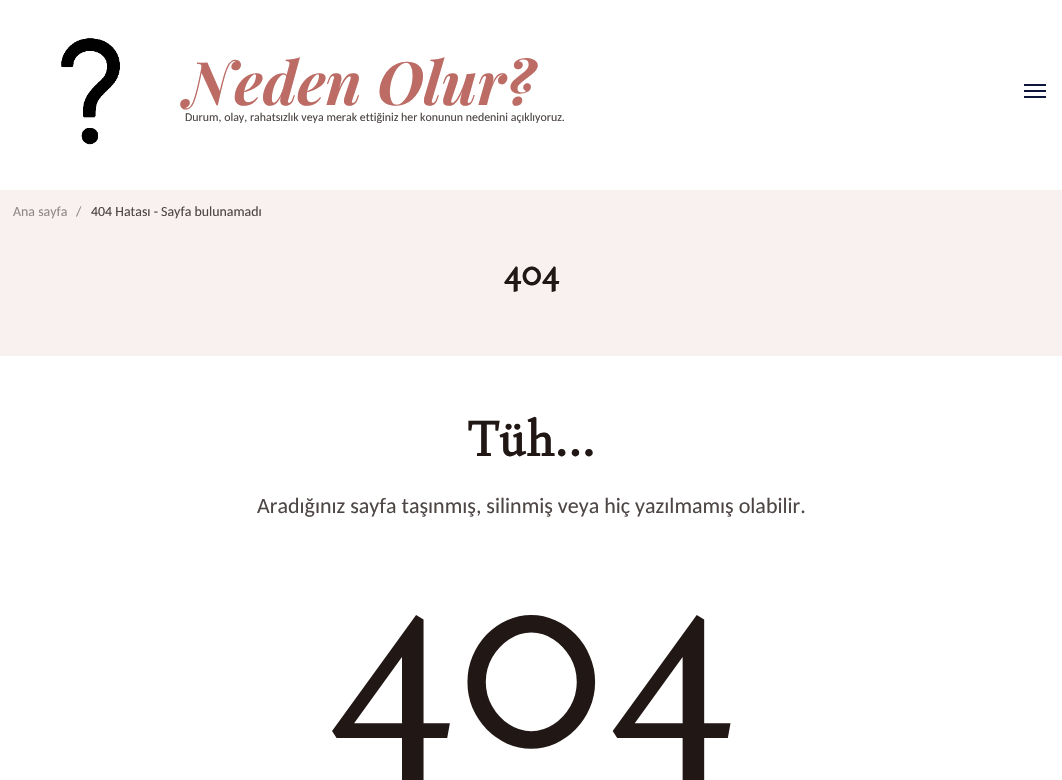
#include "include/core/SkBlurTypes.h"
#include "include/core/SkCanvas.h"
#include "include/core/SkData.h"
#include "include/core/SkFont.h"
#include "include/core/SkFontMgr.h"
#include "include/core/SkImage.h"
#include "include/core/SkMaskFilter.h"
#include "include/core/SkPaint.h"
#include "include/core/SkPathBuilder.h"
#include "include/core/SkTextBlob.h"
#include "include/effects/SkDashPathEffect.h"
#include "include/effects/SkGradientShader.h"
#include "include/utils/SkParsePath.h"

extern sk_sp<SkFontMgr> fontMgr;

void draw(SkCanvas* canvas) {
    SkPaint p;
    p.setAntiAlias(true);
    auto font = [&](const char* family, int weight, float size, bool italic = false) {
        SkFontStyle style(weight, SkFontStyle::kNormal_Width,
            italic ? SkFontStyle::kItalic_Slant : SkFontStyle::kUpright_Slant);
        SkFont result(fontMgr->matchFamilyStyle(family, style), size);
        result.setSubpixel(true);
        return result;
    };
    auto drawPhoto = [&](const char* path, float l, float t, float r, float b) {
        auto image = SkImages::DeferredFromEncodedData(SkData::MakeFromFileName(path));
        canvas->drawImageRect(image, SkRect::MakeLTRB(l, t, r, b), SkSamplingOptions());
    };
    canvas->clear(0xFFFFFFFF);
    drawPhoto("media/1.png", 61, 38, 120, 145);
    auto font1 = font("Playfair Display", 700, 60, true);
    p.setColor(0xFFBC6C65);
    canvas->drawString("Neden Olur?", 185, 105, font1, p);
    auto font2 = font("Carlito", 400, 11.9f);
    p.setColor(0xFF4D4644);
    canvas->drawString("Durum, olay, rahatsızlık veya merak ettiğiniz her konunun nedenini açıklıyoruz.", 185, 121, font2, p);
    {
        const struct { float l, t, r, b; SkColor color; } items[] = {
            {1024, 84, 1046, 86, 0xFF0D173B},
            {1024, 90, 1046, 92, 0xFF0D173B},
            {1024, 96, 1046, 98, 0xFF0D173B},
            {0, 190, 1062, 356, 0xFFF9F1F0},
        };
        for (auto [l, t, r, b, color] : items) {
            p.setColor(color);
            canvas->drawRect(SkRect::MakeLTRB(l, t, r, b), p);
        }
    }
    auto font3 = font("Carlito", 400, 13.9f);
    p.setColor(0xFF928A89);
    canvas->drawString("Ana sayfa", 13, 216, font3, p);
    canvas->drawString("/", 76, 216, font3, p);
    p.setColor(0xFF4D4644);
    canvas->drawString("404 Hatası - Sayfa bulunamadı", 91, 216, font3, p);
    auto font4 = font("Joan", 700, 36);
    p.setColor(0xFF211815);
    canvas->drawString("404", 503, 285, font4, p);
    auto font5 = font("Joan", 700, 48);
    canvas->drawString("Tüh...", 468, 456, font5, p);
    auto font6 = font("Carlito", 400, 22);
    p.setColor(0xFF4D4644);
    canvas->drawString("Aradığınız sayfa taşınmış, silinmiş veya hiç yazılmamış olabilir.", 257, 513, font6, p);
    auto font7 = font("Joan", 400, 266);
    p.setColor(0xFF211815);
    canvas->drawString("404", 323, 745, font7, p);
}
